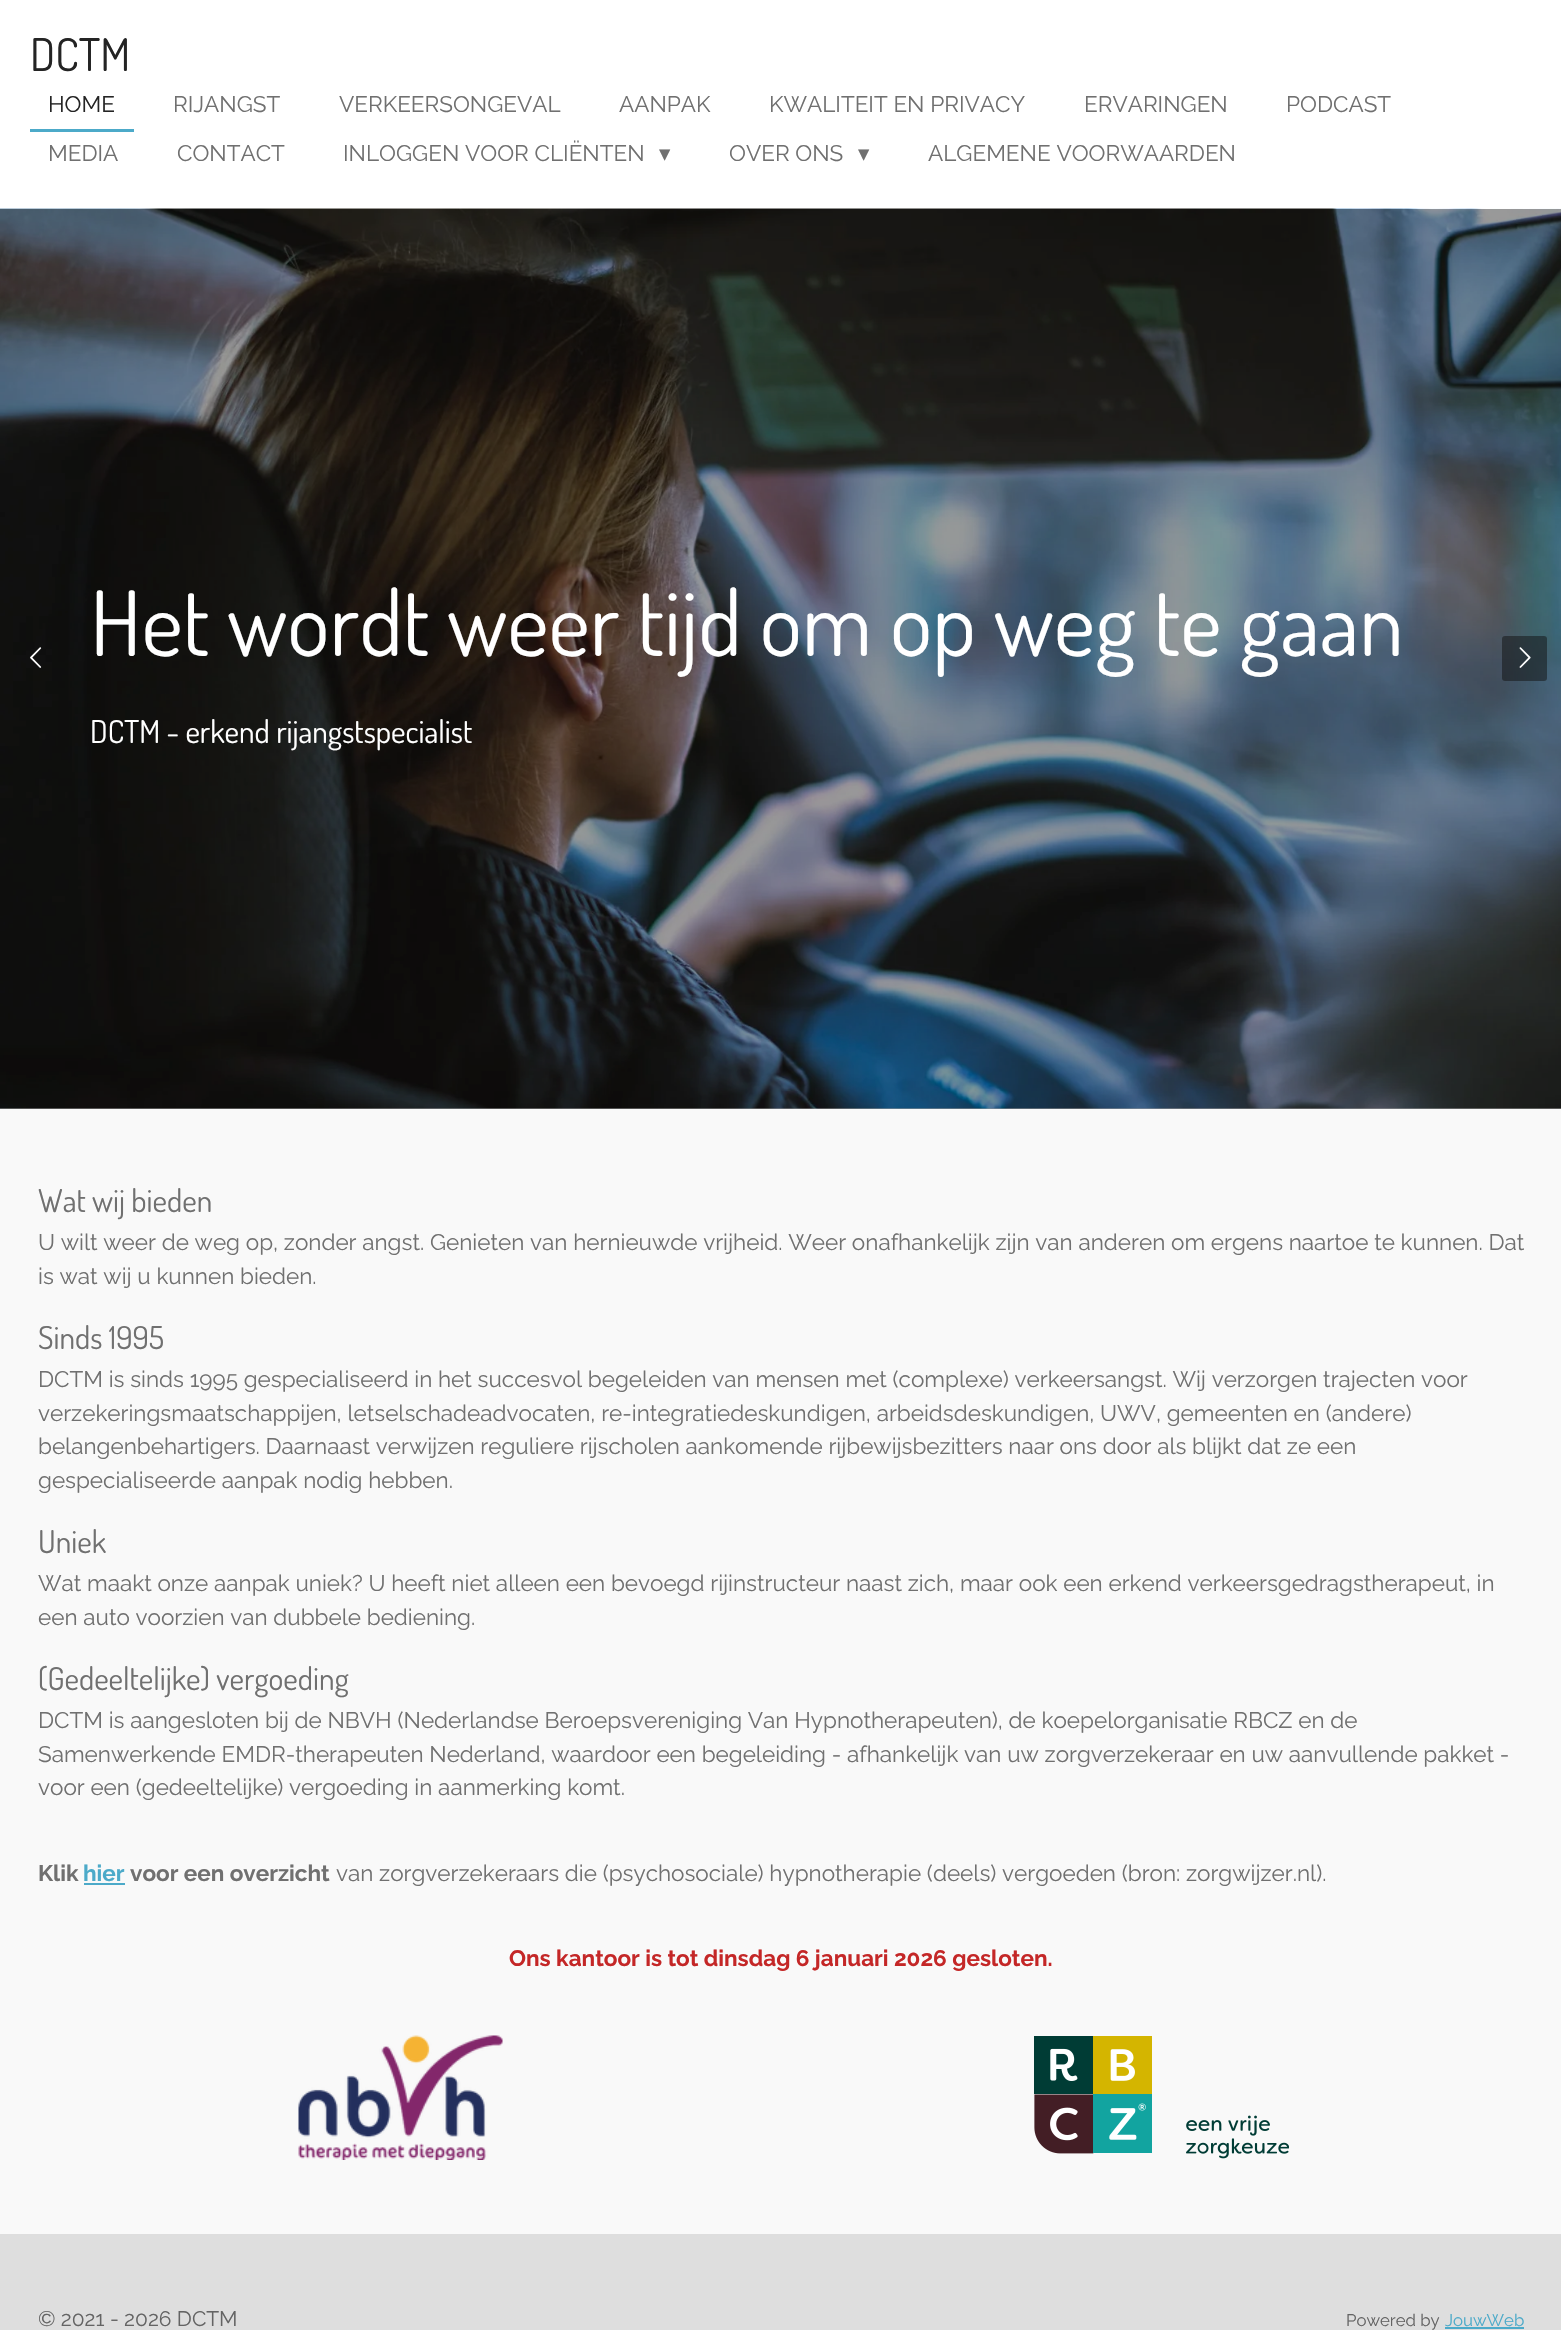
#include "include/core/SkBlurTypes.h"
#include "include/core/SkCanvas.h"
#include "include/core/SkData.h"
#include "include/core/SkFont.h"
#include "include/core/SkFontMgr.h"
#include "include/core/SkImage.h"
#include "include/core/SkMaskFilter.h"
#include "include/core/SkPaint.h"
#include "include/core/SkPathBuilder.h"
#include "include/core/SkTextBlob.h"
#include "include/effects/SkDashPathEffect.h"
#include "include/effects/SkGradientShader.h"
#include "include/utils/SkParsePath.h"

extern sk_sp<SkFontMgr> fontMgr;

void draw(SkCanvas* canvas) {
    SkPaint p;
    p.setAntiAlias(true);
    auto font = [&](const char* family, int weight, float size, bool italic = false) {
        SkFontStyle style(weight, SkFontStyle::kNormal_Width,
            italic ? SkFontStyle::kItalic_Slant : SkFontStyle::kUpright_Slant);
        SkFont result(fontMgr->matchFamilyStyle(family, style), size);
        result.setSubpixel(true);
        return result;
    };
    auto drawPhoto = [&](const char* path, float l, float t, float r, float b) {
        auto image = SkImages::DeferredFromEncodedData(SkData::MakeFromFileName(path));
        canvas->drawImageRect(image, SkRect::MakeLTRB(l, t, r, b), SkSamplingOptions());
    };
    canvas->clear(0xFFFFFFFF);
    p.setColor(0xFF999999);
    canvas->drawRect(SkRect::MakeLTRB(0, 1108, 1561, 1109), p);
    auto font1 = font("Dosis", 400, 45);
    p.setColor(0xFF242424);
    canvas->drawString("DCTM", 30, 71, font1, p);
    p.setColor(0xFF4CAAC9);
    canvas->drawPath(SkPathBuilder().moveTo(30, 129).lineTo(30, 132).lineTo(134, 132).lineTo(134, 84).lineTo(134, 129).close().detach(), p);
    auto font2 = font("Raleway", 400, 22.5f);
    p.setColor(0xFF242424);
    canvas->drawString("HOME", 48, 112, font2, p);
    p.setColor(0xFF707070);
    {
        const struct { const char* s; float x, y; } items[] = {
            {"RIJANGST", 173, 112},
            {"VERKEERSONGEVAL", 339, 112},
            {"AANPAK", 619, 112},
            {"KWALITEIT EN PRIVACY", 769, 112},
            {"ERVARINGEN", 1084, 112},
            {"PODCAST", 1286, 112},
            {"MEDIA", 48, 161},
            {"CONTACT", 177, 161},
            {"INLOGGEN VOOR CLIËNTEN", 343, 161},
        };
        for (auto [s, x, y] : items) {
            canvas->drawString(s, x, y, font2, p);
        }
    }
    auto font3 = font("DejaVu Sans", 400, 22.5f);
    canvas->drawString("▾", 659, 161, font3, p);
    canvas->drawString("OVER ONS", 729, 161, font2, p);
    canvas->drawString("▾", 858, 161, font3, p);
    canvas->drawString("ALGEMENE VOORWAARDEN", 928, 161, font2, p);
    drawPhoto("media/1.png", 0, 208, 1561, 1109);
    auto font4 = font("Dosis", 400, 90);
    p.setColor(0xFFFFFFFF);
    canvas->drawString("Het wordt weer tijd om op weg te gaan", 90, 656, font4, p);
    auto font5 = font("Dosis", 400, 31.5f);
    canvas->drawString("DCTM - erkend rijangstspecialist", 90, 743, font5, p);
    drawPhoto("media/2.png", 30, 647, 42, 668);
    p.setColor(0x800F0F0F);
    canvas->drawRoundRect(SkRect::MakeLTRB(1502, 636, 1547, 681), 3, 3, p);
    drawPhoto("media/3.png", 1519, 647, 1531, 668);
    p.setColor(0xFFF9F9F9);
    canvas->drawRect(SkRect::MakeLTRB(0, 1109, 1561, 2234), p);
    p.setColor(0xFF707070);
    canvas->drawString("Wat wij bieden", 38, 1212, font5, p);
    canvas->drawString("U wilt weer de weg op, zonder angst. Genieten van hernieuwde vrijheid. Weer onafhankelijk zijn van anderen om ergens naartoe te kunnen. Dat", 38, 1250, font2, p);
    canvas->drawString("is wat wij u kunnen bieden.", 38, 1284, font2, p);
    canvas->drawString("Sinds 1995", 38, 1349, font5, p);
    {
        const struct { const char* s; float x, y; } items[] = {
            {"DCTM is sinds 1995 gespecialiseerd in het succesvol begeleiden van mensen met (complexe) verkeersangst. Wij verzorgen trajecten voor", 38, 1387},
            {"verzekeringsmaatschappijen, letselschadeadvocaten, re-integratiedeskundigen, arbeidsdeskundigen, UWV, gemeenten en (andere)", 38, 1421},
            {"belangenbehartigers. Daarnaast verwijzen reguliere rijscholen aankomende rijbewijsbezitters naar ons door als blijkt dat ze een", 38, 1454},
            {"gespecialiseerde aanpak nodig hebben.", 38, 1488},
        };
        for (auto [s, x, y] : items) {
            canvas->drawString(s, x, y, font2, p);
        }
    }
    canvas->drawString("Uniek", 38, 1553, font5, p);
    canvas->drawString("Wat maakt onze aanpak uniek? U heeft niet alleen een bevoegd rijinstructeur naast zich, maar ook een erkend verkeersgedragstherapeut, in", 38, 1591, font2, p);
    canvas->drawString("een auto voorzien van dubbele bediening.", 38, 1625, font2, p);
    canvas->drawString("(Gedeeltelijke) vergoeding", 38, 1690, font5, p);
    {
        const struct { const char* s; float x, y; } items[] = {
            {"DCTM is aangesloten bij de NBVH (Nederlandse Beroepsvereniging Van Hypnotherapeuten), de koepelorganisatie RBCZ en de", 38, 1728},
            {"Samenwerkende EMDR-therapeuten Nederland, waardoor een begeleiding - afhankelijk van uw zorgverzekeraar en uw aanvullende pakket -", 38, 1762},
            {"voor een (gedeeltelijke) vergoeding in aanmerking komt.", 38, 1795},
        };
        for (auto [s, x, y] : items) {
            canvas->drawString(s, x, y, font2, p);
        }
    }
    auto font6 = font("Raleway", 700, 22.5f);
    canvas->drawString("Klik", 38, 1881, font6, p);
    p.setColor(0xFF4CAAC9);
    canvas->drawString("hier", 83, 1881, font6, p);
    canvas->drawRect(SkRect::MakeLTRB(84, 1883, 125, 1885), p);
    p.setColor(0xFF707070);
    canvas->drawString("voor een overzicht", 130, 1881, font6, p);
    canvas->drawString("van zorgverzekeraars die (psychosociale) hypnotherapie (deels) vergoeden (bron: zorgwijzer.nl).", 336, 1881, font2, p);
    p.setColor(0xFFC42727);
    canvas->drawString("Ons kantoor is tot dinsdag 6 januari 2026 gesloten.", 509, 1966, font6, p);
    drawPhoto("media/4.png", 298, 2035, 503, 2160);
    drawPhoto("media/5.png", 1034, 2036, 1289, 2159);
    p.setColor(0xFFDEDEDE);
    canvas->drawRect(SkRect::MakeLTRB(0, 2234, 1561, 2330), p);
    auto font7 = font("Raleway", 400, 21);
    p.setColor(0xFF646464);
    canvas->drawString("© 2021 - 2026 DCTM", 38, 2326, font7, p);
    auto font8 = font("Raleway", 400, 16.75f);
    canvas->drawString("Powered by", 1346, 2326, font8, p);
    p.setColor(0xFF4CAAC9);
    canvas->drawString("JouwWeb", 1445, 2326, font8, p);
    canvas->drawRect(SkRect::MakeLTRB(1445, 2327, 1524, 2329), p);
}
